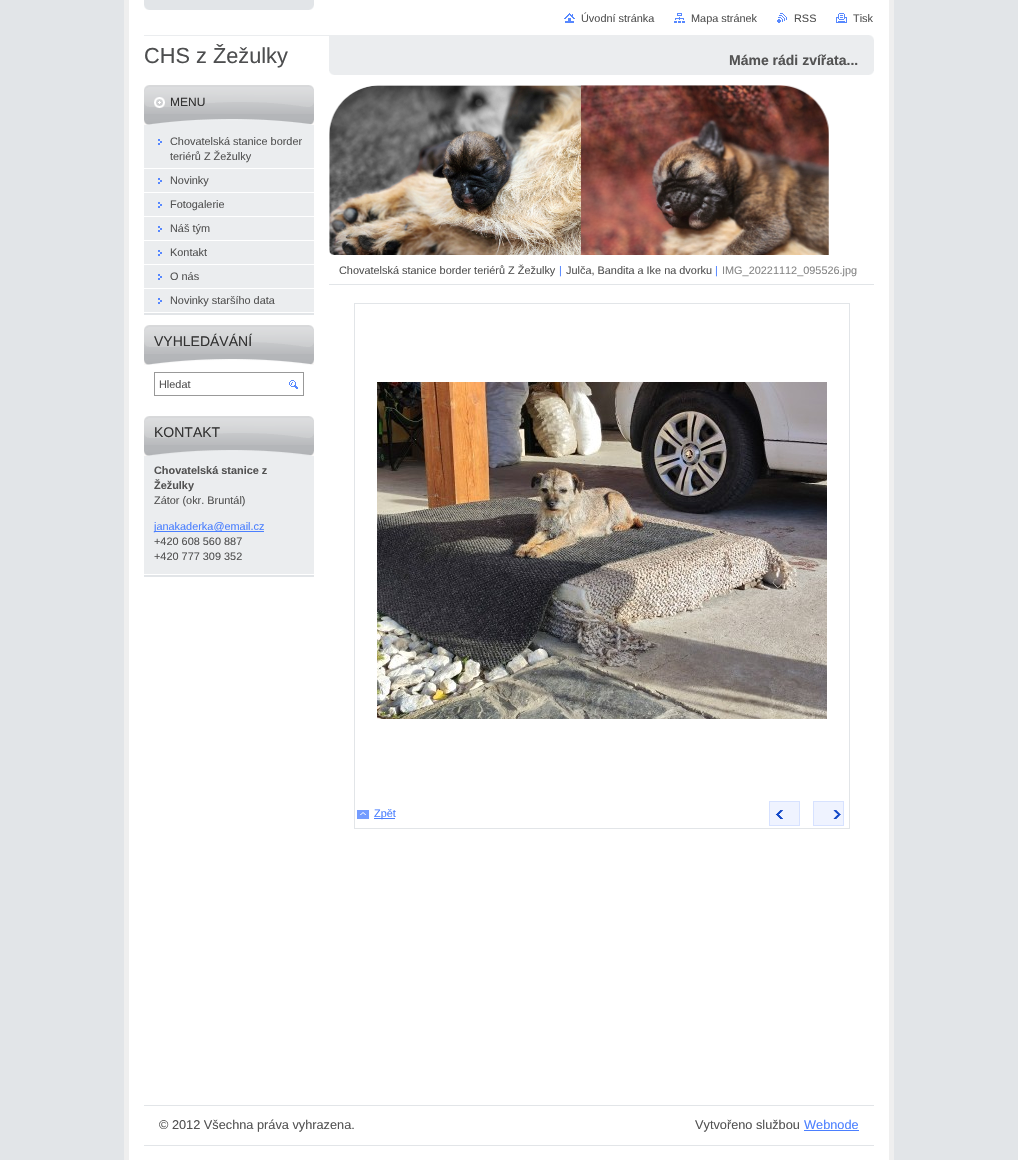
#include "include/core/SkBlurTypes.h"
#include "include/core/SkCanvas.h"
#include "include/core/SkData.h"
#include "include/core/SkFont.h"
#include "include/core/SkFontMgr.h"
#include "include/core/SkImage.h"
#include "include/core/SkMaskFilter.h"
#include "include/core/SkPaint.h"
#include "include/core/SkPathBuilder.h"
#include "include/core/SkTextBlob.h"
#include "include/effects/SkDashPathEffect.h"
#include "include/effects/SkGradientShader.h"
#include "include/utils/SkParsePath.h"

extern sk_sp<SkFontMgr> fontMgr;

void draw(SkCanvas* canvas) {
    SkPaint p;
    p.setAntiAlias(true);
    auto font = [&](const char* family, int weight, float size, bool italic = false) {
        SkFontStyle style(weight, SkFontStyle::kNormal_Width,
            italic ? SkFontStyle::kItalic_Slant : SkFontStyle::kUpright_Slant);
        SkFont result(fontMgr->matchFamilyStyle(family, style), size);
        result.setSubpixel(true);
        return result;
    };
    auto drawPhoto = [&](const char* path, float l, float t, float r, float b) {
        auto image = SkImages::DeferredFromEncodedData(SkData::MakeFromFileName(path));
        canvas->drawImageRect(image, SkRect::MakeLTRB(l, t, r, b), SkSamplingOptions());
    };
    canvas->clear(0xFFE2E5E8);
    p.setColor(0xFFFFFFFF);
    canvas->drawRect(SkRect::MakeLTRB(129, 0, 889, 1160), p);
    drawPhoto("media/1.png", 144, 0, 314, 10);
    p.setColor(0xFFEFEFEF);
    canvas->drawRect(SkRect::MakeLTRB(889, 0, 894, 1160), p);
    canvas->drawRect(SkRect::MakeLTRB(124, 0, 129, 1160), p);
    drawPhoto("media/2.png", 564, 13, 575, 23);
    auto font1 = font("Liberation Sans", 400, 10.9f);
    p.setColor(0xFF535353);
    canvas->drawString("Úvodní stránka", 581, 22, font1, p);
    drawPhoto("media/3.png", 674, 13, 685, 23);
    canvas->drawString("Mapa stránek", 691, 22, font1, p);
    drawPhoto("media/4.png", 777, 13, 787, 23);
    canvas->drawString("RSS", 794, 22, font1, p);
    drawPhoto("media/5.png", 836, 13, 847, 23);
    canvas->drawString("Tisk", 853, 22, font1, p);
    drawPhoto("media/6.png", 144, 35, 874, 41);
    auto font2 = font("Liberation Sans", 400, 21.75f);
    p.setColor(0xFF4D4E4F);
    canvas->drawString("CHS z Žežulky", 144, 63, font2, p);
    p.setColor(0xFFEBEDEF);
    canvas->drawRect(SkRect::MakeLTRB(329, 41, 874, 71), p);
    drawPhoto("media/7.png", 329, 71, 874, 75);
    auto font3 = font("Liberation Sans", 700, 14);
    p.setColor(0xFF535353);
    canvas->drawString("Máme rádi zvířata...", 729, 65, font3, p);
    {
        const struct { float l, t, r, b; SkColor color; } items[] = {
            {144, 313, 314, 315, 0xFFE2E5E8},
            {144, 125, 314, 312, 0xFFEBEDEF},
            {144, 114, 314, 119, 0xFFB4B6B9},
        };
        for (auto [l, t, r, b, color] : items) {
            p.setColor(color);
            canvas->drawRect(SkRect::MakeLTRB(l, t, r, b), p);
        }
    }
    drawPhoto("media/8.png", 144, 85, 314, 114);
    drawPhoto("media/9.png", 144, 119, 314, 125);
    auto font4 = font("Liberation Sans", 400, 12);
    p.setColor(0xFF333333);
    canvas->drawString("MENU", 170, 106, font4, p);
    drawPhoto("media/10.png", 158, 139, 162, 145);
    p.setColor(0xFFFFFFFF);
    canvas->drawRect(SkRect::MakeLTRB(144, 168, 314, 169), p);
    p.setColor(0xFF535353);
    canvas->drawString("Chovatelská stanice border", 170, 145, font1, p);
    canvas->drawString("teriérů Z Žežulky", 170, 160, font1, p);
    drawPhoto("media/10.png", 158, 178, 162, 184);
    p.setColor(0xFFFFFFFF);
    canvas->drawRect(SkRect::MakeLTRB(144, 192, 314, 193), p);
    p.setColor(0xFF535353);
    canvas->drawString("Novinky", 170, 184, font1, p);
    drawPhoto("media/10.png", 158, 202, 162, 208);
    p.setColor(0xFFFFFFFF);
    canvas->drawRect(SkRect::MakeLTRB(144, 216, 314, 217), p);
    p.setColor(0xFF535353);
    canvas->drawString("Fotogalerie", 170, 208, font1, p);
    drawPhoto("media/10.png", 158, 226, 162, 232);
    p.setColor(0xFFFFFFFF);
    canvas->drawRect(SkRect::MakeLTRB(144, 240, 314, 241), p);
    p.setColor(0xFF535353);
    canvas->drawString("Náš tým", 170, 232, font1, p);
    drawPhoto("media/10.png", 158, 250, 162, 256);
    p.setColor(0xFFFFFFFF);
    canvas->drawRect(SkRect::MakeLTRB(144, 264, 314, 265), p);
    p.setColor(0xFF535353);
    canvas->drawString("Kontakt", 170, 256, font1, p);
    drawPhoto("media/10.png", 158, 274, 162, 280);
    p.setColor(0xFFFFFFFF);
    canvas->drawRect(SkRect::MakeLTRB(144, 288, 314, 289), p);
    p.setColor(0xFF535353);
    canvas->drawString("O nás", 170, 280, font1, p);
    drawPhoto("media/10.png", 158, 298, 162, 304);
    canvas->drawString("Novinky staršího data", 170, 304, font1, p);
    p.setColor(0xFFB4B6B9);
    canvas->drawRect(SkRect::MakeLTRB(144, 354, 314, 360), p);
    drawPhoto("media/11.png", 144, 325, 314, 354);
    drawPhoto("media/12.png", 144, 359, 314, 365);
    auto font5 = font("Liberation Sans", 400, 14);
    p.setColor(0xFF333333);
    canvas->drawString("VYHLEDÁVÁNÍ", 154, 346, font5, p);
    p.setStyle(SkPaint::kStroke_Style);
    p.setStrokeWidth(1);
    p.setColor(0xFF999999);
    canvas->drawRect(SkRect::MakeLTRB(154.5f, 372.5f, 303.5f, 395.5f), p);
    p.setStyle(SkPaint::kFill_Style);
    p.setColor(0xFF535353);
    canvas->drawString("Hledat", 159, 388, font1, p);
    drawPhoto("media/13.png", 289, 380, 298, 389);
    {
        const struct { float l, t, r, b; SkColor color; } items[] = {
            {144, 575, 314, 577, 0xFFE2E5E8},
            {144, 456, 314, 574, 0xFFEBEDEF},
            {144, 445, 314, 451, 0xFFB4B6B9},
        };
        for (auto [l, t, r, b, color] : items) {
            p.setColor(color);
            canvas->drawRect(SkRect::MakeLTRB(l, t, r, b), p);
        }
    }
    drawPhoto("media/14.png", 144, 416, 314, 445);
    drawPhoto("media/15.png", 144, 450, 314, 456);
    p.setColor(0xFF333333);
    canvas->drawString("KONTAKT", 154, 437, font5, p);
    auto font6 = font("Liberation Sans", 700, 10.9f);
    p.setColor(0xFF535353);
    canvas->drawString("Chovatelská stanice z", 154, 474, font6, p);
    canvas->drawString("Žežulky", 154, 489, font6, p);
    canvas->drawString("Zátor (okr. Bruntál)", 154, 504, font1, p);
    p.setColor(0xFF4B7FFF);
    canvas->drawRect(SkRect::MakeLTRB(154, 531, 264, 532), p);
    p.setColor(0xFF4B80FF);
    canvas->drawString("janakaderka@email.cz", 154, 530, font1, p);
    p.setColor(0xFF535353);
    canvas->drawString("+420 608 560 887", 154, 545, font1, p);
    canvas->drawString("+420 777 309 352", 154, 560, font1, p);
    drawPhoto("media/16.png", 329, 85, 829, 255);
    drawPhoto("media/17.png", 329, 250, 334, 255);
    p.setColor(0xFFE2E5E8);
    canvas->drawRect(SkRect::MakeLTRB(329, 284, 874, 285), p);
    p.setColor(0xFF535353);
    canvas->drawString("Chovatelská stanice border teriérů Z Žežulky", 339, 274, font1, p);
    p.setColor(0xFF4B80FF);
    canvas->drawString("|", 559, 274, font1, p);
    p.setColor(0xFF535353);
    canvas->drawString("Julča, Bandita a Ike na dvorku", 566, 274, font1, p);
    p.setColor(0xFF4B80FF);
    canvas->drawString("|", 715, 274, font1, p);
    p.setColor(0xFF878787);
    canvas->drawString("IMG_20221112_095526.jpg", 722, 274, font1, p);
    p.setStyle(SkPaint::kStroke_Style);
    p.setColor(0xFFE2E5E8);
    canvas->drawRect(SkRect::MakeLTRB(354.5f, 303.5f, 849.5f, 828.5f), p);
    drawPhoto("media/18.png", 377, 382, 827, 719);
    drawPhoto("media/19.png", 357, 810, 369, 819);
    p.setStyle(SkPaint::kFill_Style);
    p.setColor(0xFF4B7FFF);
    canvas->drawRect(SkRect::MakeLTRB(374, 818, 395, 819), p);
    p.setColor(0xFF4B80FF);
    canvas->drawString("Zpět", 374, 817, font1, p);
    p.setColor(0xFFEFF3FF);
    canvas->drawRect(SkRect::MakeLTRB(769.5f, 801.5f, 799.5f, 825.5f), p);
    p.setStyle(SkPaint::kStroke_Style);
    p.setColor(0xFFD7E2FF);
    canvas->drawRect(SkRect::MakeLTRB(769.5f, 801.5f, 799.5f, 825.5f), p);
    drawPhoto("media/20.png", 775, 810, 783, 819);
    p.setStyle(SkPaint::kFill_Style);
    p.setColor(0xFFEFF3FF);
    canvas->drawRect(SkRect::MakeLTRB(813.5f, 801.5f, 843.5f, 825.5f), p);
    p.setStyle(SkPaint::kStroke_Style);
    p.setColor(0xFFD7E2FF);
    canvas->drawRect(SkRect::MakeLTRB(813.5f, 801.5f, 843.5f, 825.5f), p);
    drawPhoto("media/21.png", 830, 810, 841, 819);
    p.setStyle(SkPaint::kFill_Style);
    p.setColor(0xFFE2E5E8);
    canvas->drawRect(SkRect::MakeLTRB(144, 1105, 874, 1106), p);
    canvas->drawRect(SkRect::MakeLTRB(144, 1145, 874, 1146), p);
    auto font7 = font("Liberation Sans", 400, 12.75f);
    p.setColor(0xFF535353);
    canvas->drawString("© 2012 Všechna práva vyhrazena.", 159, 1129, font7, p);
    canvas->drawString("Vytvořeno službou", 695, 1129, font7, p);
    p.setColor(0xFF4B80FF);
    canvas->drawString("Webnode", 804, 1129, font7, p);
    p.setColor(0xFF4B7FFF);
    canvas->drawRect(SkRect::MakeLTRB(804, 1130, 859, 1131), p);
}
